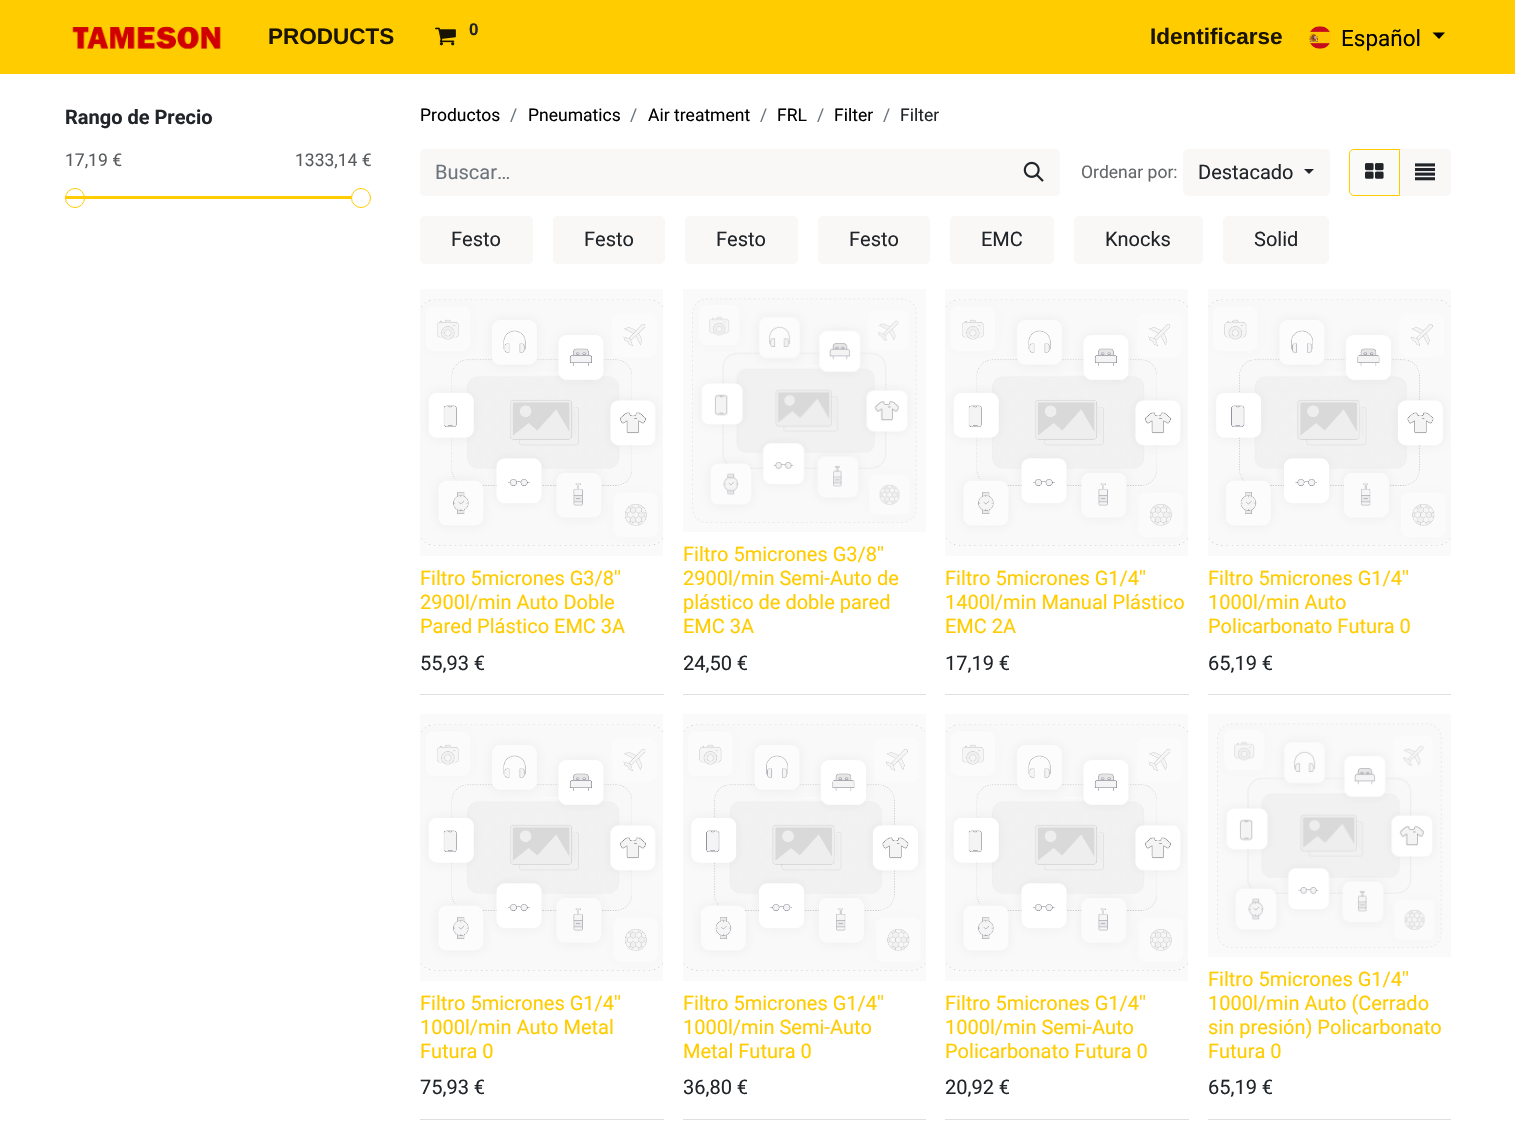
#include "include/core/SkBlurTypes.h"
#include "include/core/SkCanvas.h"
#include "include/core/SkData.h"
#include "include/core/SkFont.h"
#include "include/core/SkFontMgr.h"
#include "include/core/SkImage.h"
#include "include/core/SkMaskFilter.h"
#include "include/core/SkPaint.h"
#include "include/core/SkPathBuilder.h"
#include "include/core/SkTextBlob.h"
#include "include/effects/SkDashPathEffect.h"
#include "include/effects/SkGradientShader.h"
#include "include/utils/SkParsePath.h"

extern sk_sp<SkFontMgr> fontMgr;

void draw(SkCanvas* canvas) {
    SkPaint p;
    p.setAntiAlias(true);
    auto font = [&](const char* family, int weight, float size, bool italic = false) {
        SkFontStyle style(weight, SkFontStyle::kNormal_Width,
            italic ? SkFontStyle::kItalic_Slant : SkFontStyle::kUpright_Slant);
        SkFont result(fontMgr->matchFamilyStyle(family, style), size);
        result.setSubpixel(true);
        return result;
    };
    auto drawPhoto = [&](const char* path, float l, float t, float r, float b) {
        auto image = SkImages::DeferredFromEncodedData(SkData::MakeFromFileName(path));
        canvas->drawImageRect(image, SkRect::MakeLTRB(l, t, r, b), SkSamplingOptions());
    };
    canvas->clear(0xFFFFFFFF);
    p.setColor(0xFFFFCC00);
    canvas->drawRect(SkRect::MakeLTRB(0, 0, 1515, 74), p);
    drawPhoto("media/1.png", 72, 26, 221, 49);
    auto font1 = font("Liberation Sans", 700, 22.5f);
    p.setColor(0xFF1A1400);
    canvas->drawString("PRODUCTS", 268, 44, font1, p);
    drawPhoto("media/2.png", 435, 27, 456, 46);
    auto font2 = font("Liberation Sans", 700, 17);
    p.setColor(0xFF212529);
    canvas->drawString("0", 469, 35, font2, p);
    p.setColor(0xFF1A1400);
    canvas->drawString("Identificarse", 1150, 44, font1, p);
    drawPhoto("media/3.png", 1309, 26, 1331, 49);
    auto font3 = font("Roboto", 400, 22.5f);
    p.setColor(0xFF000000);
    canvas->drawString("Español", 1341, 46, font3, p);
    canvas->drawPath(SkPathBuilder().moveTo(1432.5f, 32.5f).lineTo(1445, 32.5f).lineTo(1439, 39).close().detach(), p);
    auto font4 = font("Roboto", 700, 20);
    p.setColor(0xFF212529);
    canvas->drawString("Rango de Precio", 65, 124, font4, p);
    auto font5 = font("Roboto", 400, 17.5f);
    p.setColor(0xFF595C5F);
    canvas->drawString("17,19 €", 65, 166, font5, p);
    canvas->drawString("1333,14 €", 295, 166, font5, p);
    p.setStyle(SkPaint::kStroke_Style);
    p.setStrokeWidth(1);
    p.setColor(0xFFFFCC00);
    canvas->drawCircle(75, 198, 9.5f, p);
    p.setStyle(SkPaint::kFill_Style);
    canvas->drawRoundRect(SkRect::MakeLTRB(65, 196, 371, 199), 1.5f, 1.5f, p);
    p.setColor(0xFFFFFFFF);
    canvas->drawCircle(361, 198, 9.5f, p);
    p.setStyle(SkPaint::kStroke_Style);
    p.setColor(0xFFFFCC00);
    canvas->drawCircle(361, 198, 9.5f, p);
    p.setStyle(SkPaint::kFill_Style);
    p.setColor(0xFF000000);
    canvas->drawString("Productos", 420, 121, font5, p);
    p.setColor(0xFF6C757D);
    canvas->drawString("/", 510, 121, font5, p);
    p.setColor(0xFF000000);
    canvas->drawString("Pneumatics", 528, 121, font5, p);
    p.setColor(0xFF6C757D);
    canvas->drawString("/", 630, 121, font5, p);
    p.setColor(0xFF000000);
    canvas->drawString("Air treatment", 648, 121, font5, p);
    p.setColor(0xFF6C757D);
    canvas->drawString("/", 760, 121, font5, p);
    p.setColor(0xFF000000);
    canvas->drawString("FRL", 777, 121, font5, p);
    p.setColor(0xFF6C757D);
    canvas->drawString("/", 817, 121, font5, p);
    p.setColor(0xFF000000);
    canvas->drawString("Filter", 834, 121, font5, p);
    p.setColor(0xFF6C757D);
    canvas->drawString("/", 883, 121, font5, p);
    p.setColor(0xFF212529);
    canvas->drawString("Filter", 900, 121, font5, p);
    p.setColor(0xFFF9F8F6);
    canvas->drawPath(SkPathBuilder().moveTo(425, 149).lineTo(1009, 149).lineTo(1009, 196).lineTo(425, 196).cubicTo(422, 196, 420, 194, 420, 191).lineTo(420, 154).cubicTo(420, 151, 422, 149, 425, 149).close().detach(), p);
    auto font6 = font("Roboto", 400, 20);
    p.setColor(0xFF6C757D);
    canvas->drawString("Buscar…", 435, 179, font6, p);
    p.setColor(0xFFF9F8F6);
    canvas->drawPath(SkPathBuilder().moveTo(1008, 149).lineTo(1055, 149).cubicTo(1058, 149, 1060, 151, 1060, 154).lineTo(1060, 191).cubicTo(1060, 194, 1058, 196, 1055, 196).lineTo(1008, 196).close().detach(), p);
    drawPhoto("media/4.png", 1023, 161, 1044, 182);
    p.setColor(0xFF646669);
    canvas->drawString("Ordenar por:", 1081, 178, font5, p);
    p.setColor(0xFFF9F8F6);
    canvas->drawRoundRect(SkRect::MakeLTRB(1183, 149, 1330, 196), 5, 5, p);
    p.setColor(0xFF212529);
    canvas->drawString("Destacado", 1198, 179, font6, p);
    canvas->drawPath(SkPathBuilder().moveTo(1304, 169).lineTo(1314, 169).lineTo(1309, 174).close().detach(), p);
    p.setColor(0xFFF9F8F6);
    canvas->drawPath(SkPathBuilder().moveTo(1399, 149).lineTo(1446, 149).cubicTo(1449, 149, 1451, 151, 1451, 154).lineTo(1451, 191).cubicTo(1451, 194, 1449, 196, 1446, 196).lineTo(1399, 196).close().detach(), p);
    p.setColor(0xFFFAFAF8);
    canvas->drawPath(SkPathBuilder().moveTo(1354, 149.5f).lineTo(1399.5f, 149.5f).lineTo(1399.5f, 195.5f).lineTo(1354, 195.5f).cubicTo(1351.5f, 195.5f, 1349.5f, 193.5f, 1349.5f, 191).lineTo(1349.5f, 154).cubicTo(1349.5f, 151.5f, 1351.5f, 149.5f, 1354, 149.5f).close().detach(), p);
    p.setStyle(SkPaint::kStroke_Style);
    p.setColor(0xFFFFCC00);
    canvas->drawPath(SkPathBuilder().moveTo(1354, 149.5f).lineTo(1399.5f, 149.5f).lineTo(1399.5f, 195.5f).lineTo(1354, 195.5f).cubicTo(1351.5f, 195.5f, 1349.5f, 193.5f, 1349.5f, 191).lineTo(1349.5f, 154).cubicTo(1349.5f, 151.5f, 1351.5f, 149.5f, 1354, 149.5f).close().detach(), p);
    drawPhoto("media/5.png", 1365, 163, 1384, 179);
    drawPhoto("media/6.png", 1415, 163, 1435, 181);
    p.setStyle(SkPaint::kFill_Style);
    p.setColor(0xFFF9F8F6);
    canvas->drawRoundRect(SkRect::MakeLTRB(420, 216, 533, 264), 5, 5, p);
    p.setColor(0xFF212529);
    canvas->drawString("Festo", 451, 246, font6, p);
    p.setColor(0xFFF9F8F6);
    canvas->drawRoundRect(SkRect::MakeLTRB(553, 216, 665, 264), 5, 5, p);
    p.setColor(0xFF212529);
    canvas->drawString("Festo", 584, 246, font6, p);
    p.setColor(0xFFF9F8F6);
    canvas->drawRoundRect(SkRect::MakeLTRB(685, 216, 798, 264), 5, 5, p);
    p.setColor(0xFF212529);
    canvas->drawString("Festo", 716, 246, font6, p);
    p.setColor(0xFFF9F8F6);
    canvas->drawRoundRect(SkRect::MakeLTRB(818, 216, 930, 264), 5, 5, p);
    p.setColor(0xFF212529);
    canvas->drawString("Festo", 849, 246, font6, p);
    p.setColor(0xFFF9F8F6);
    canvas->drawRoundRect(SkRect::MakeLTRB(950, 216, 1054, 264), 5, 5, p);
    p.setColor(0xFF212529);
    canvas->drawString("EMC", 981, 246, font6, p);
    p.setColor(0xFFF9F8F6);
    canvas->drawRoundRect(SkRect::MakeLTRB(1074, 216, 1203, 264), 5, 5, p);
    p.setColor(0xFF212529);
    canvas->drawString("Knocks", 1105, 246, font6, p);
    p.setColor(0xFFF9F8F6);
    canvas->drawRoundRect(SkRect::MakeLTRB(1223, 216, 1329, 264), 5, 5, p);
    p.setColor(0xFF212529);
    canvas->drawString("Solid", 1254, 246, font6, p);
    p.setColor(0xFFDFDFDF);
    canvas->drawRect(SkRect::MakeLTRB(420, 694, 664, 695), p);
    drawPhoto("media/7.png", 420, 289, 663, 556);
    p.setColor(0xFFFFCC00);
    {
        const struct { const char* s; float x, y; } items[] = {
            {"Filtro 5micrones G3/8''", 420, 585},
            {"2900l/min Auto Doble", 420, 609},
            {"Pared Plástico EMC 3A", 420, 633},
        };
        for (auto [s, x, y] : items) {
            canvas->drawString(s, x, y, font6, p);
        }
    }
    p.setColor(0xFF212529);
    canvas->drawString("55,93 €", 420, 670, font6, p);
    p.setColor(0xFFDFDFDF);
    canvas->drawRect(SkRect::MakeLTRB(683, 694, 926, 695), p);
    drawPhoto("media/8.png", 683, 289, 926, 532);
    p.setColor(0xFFFFCC00);
    {
        const struct { const char* s; float x, y; } items[] = {
            {"Filtro 5micrones G3/8''", 683, 561},
            {"2900l/min Semi-Auto de", 683, 585},
            {"plástico de doble pared", 683, 609},
            {"EMC 3A", 683, 633},
        };
        for (auto [s, x, y] : items) {
            canvas->drawString(s, x, y, font6, p);
        }
    }
    p.setColor(0xFF212529);
    canvas->drawString("24,50 €", 683, 670, font6, p);
    p.setColor(0xFFDFDFDF);
    canvas->drawRect(SkRect::MakeLTRB(945, 694, 1189, 695), p);
    drawPhoto("media/7.png", 945, 289, 1188, 556);
    p.setColor(0xFFFFCC00);
    {
        const struct { const char* s; float x, y; } items[] = {
            {"Filtro 5micrones G1/4''", 945, 585},
            {"1400l/min Manual Plástico", 945, 609},
            {"EMC 2A", 945, 633},
        };
        for (auto [s, x, y] : items) {
            canvas->drawString(s, x, y, font6, p);
        }
    }
    p.setColor(0xFF212529);
    canvas->drawString("17,19 €", 945, 670, font6, p);
    p.setColor(0xFFDFDFDF);
    canvas->drawRect(SkRect::MakeLTRB(1208, 694, 1451, 695), p);
    drawPhoto("media/9.png", 1208, 289, 1451, 556);
    p.setColor(0xFFFFCC00);
    {
        const struct { const char* s; float x, y; } items[] = {
            {"Filtro 5micrones G1/4''", 1208, 585},
            {"1000l/min Auto", 1208, 609},
            {"Policarbonato Futura 0", 1208, 633},
        };
        for (auto [s, x, y] : items) {
            canvas->drawString(s, x, y, font6, p);
        }
    }
    p.setColor(0xFF212529);
    canvas->drawString("65,19 €", 1208, 670, font6, p);
    p.setColor(0xFFDFDFDF);
    canvas->drawRect(SkRect::MakeLTRB(420, 1119, 664, 1120), p);
    drawPhoto("media/7.png", 420, 714, 663, 981);
    p.setColor(0xFFFFCC00);
    {
        const struct { const char* s; float x, y; } items[] = {
            {"Filtro 5micrones G1/4''", 420, 1010},
            {"1000l/min Auto Metal", 420, 1034},
            {"Futura 0", 420, 1058},
        };
        for (auto [s, x, y] : items) {
            canvas->drawString(s, x, y, font6, p);
        }
    }
    p.setColor(0xFF212529);
    canvas->drawString("75,93 €", 420, 1094, font6, p);
    p.setColor(0xFFDFDFDF);
    canvas->drawRect(SkRect::MakeLTRB(683, 1119, 926, 1120), p);
    drawPhoto("media/9.png", 683, 714, 926, 981);
    p.setColor(0xFFFFCC00);
    {
        const struct { const char* s; float x, y; } items[] = {
            {"Filtro 5micrones G1/4''", 683, 1010},
            {"1000l/min Semi-Auto", 683, 1034},
            {"Metal Futura 0", 683, 1058},
        };
        for (auto [s, x, y] : items) {
            canvas->drawString(s, x, y, font6, p);
        }
    }
    p.setColor(0xFF212529);
    canvas->drawString("36,80 €", 683, 1094, font6, p);
    p.setColor(0xFFDFDFDF);
    canvas->drawRect(SkRect::MakeLTRB(945, 1119, 1189, 1120), p);
    drawPhoto("media/7.png", 945, 714, 1188, 981);
    p.setColor(0xFFFFCC00);
    {
        const struct { const char* s; float x, y; } items[] = {
            {"Filtro 5micrones G1/4''", 945, 1010},
            {"1000l/min Semi-Auto", 945, 1034},
            {"Policarbonato Futura 0", 945, 1058},
        };
        for (auto [s, x, y] : items) {
            canvas->drawString(s, x, y, font6, p);
        }
    }
    p.setColor(0xFF212529);
    canvas->drawString("20,92 €", 945, 1094, font6, p);
    p.setColor(0xFFDFDFDF);
    canvas->drawRect(SkRect::MakeLTRB(1208, 1119, 1451, 1120), p);
    drawPhoto("media/8.png", 1208, 714, 1451, 957);
    p.setColor(0xFFFFCC00);
    {
        const struct { const char* s; float x, y; } items[] = {
            {"Filtro 5micrones G1/4''", 1208, 986},
            {"1000l/min Auto (Cerrado", 1208, 1010},
            {"sin presión) Policarbonato", 1208, 1034},
            {"Futura 0", 1208, 1058},
        };
        for (auto [s, x, y] : items) {
            canvas->drawString(s, x, y, font6, p);
        }
    }
    p.setColor(0xFF212529);
    canvas->drawString("65,19 €", 1208, 1094, font6, p);
}
